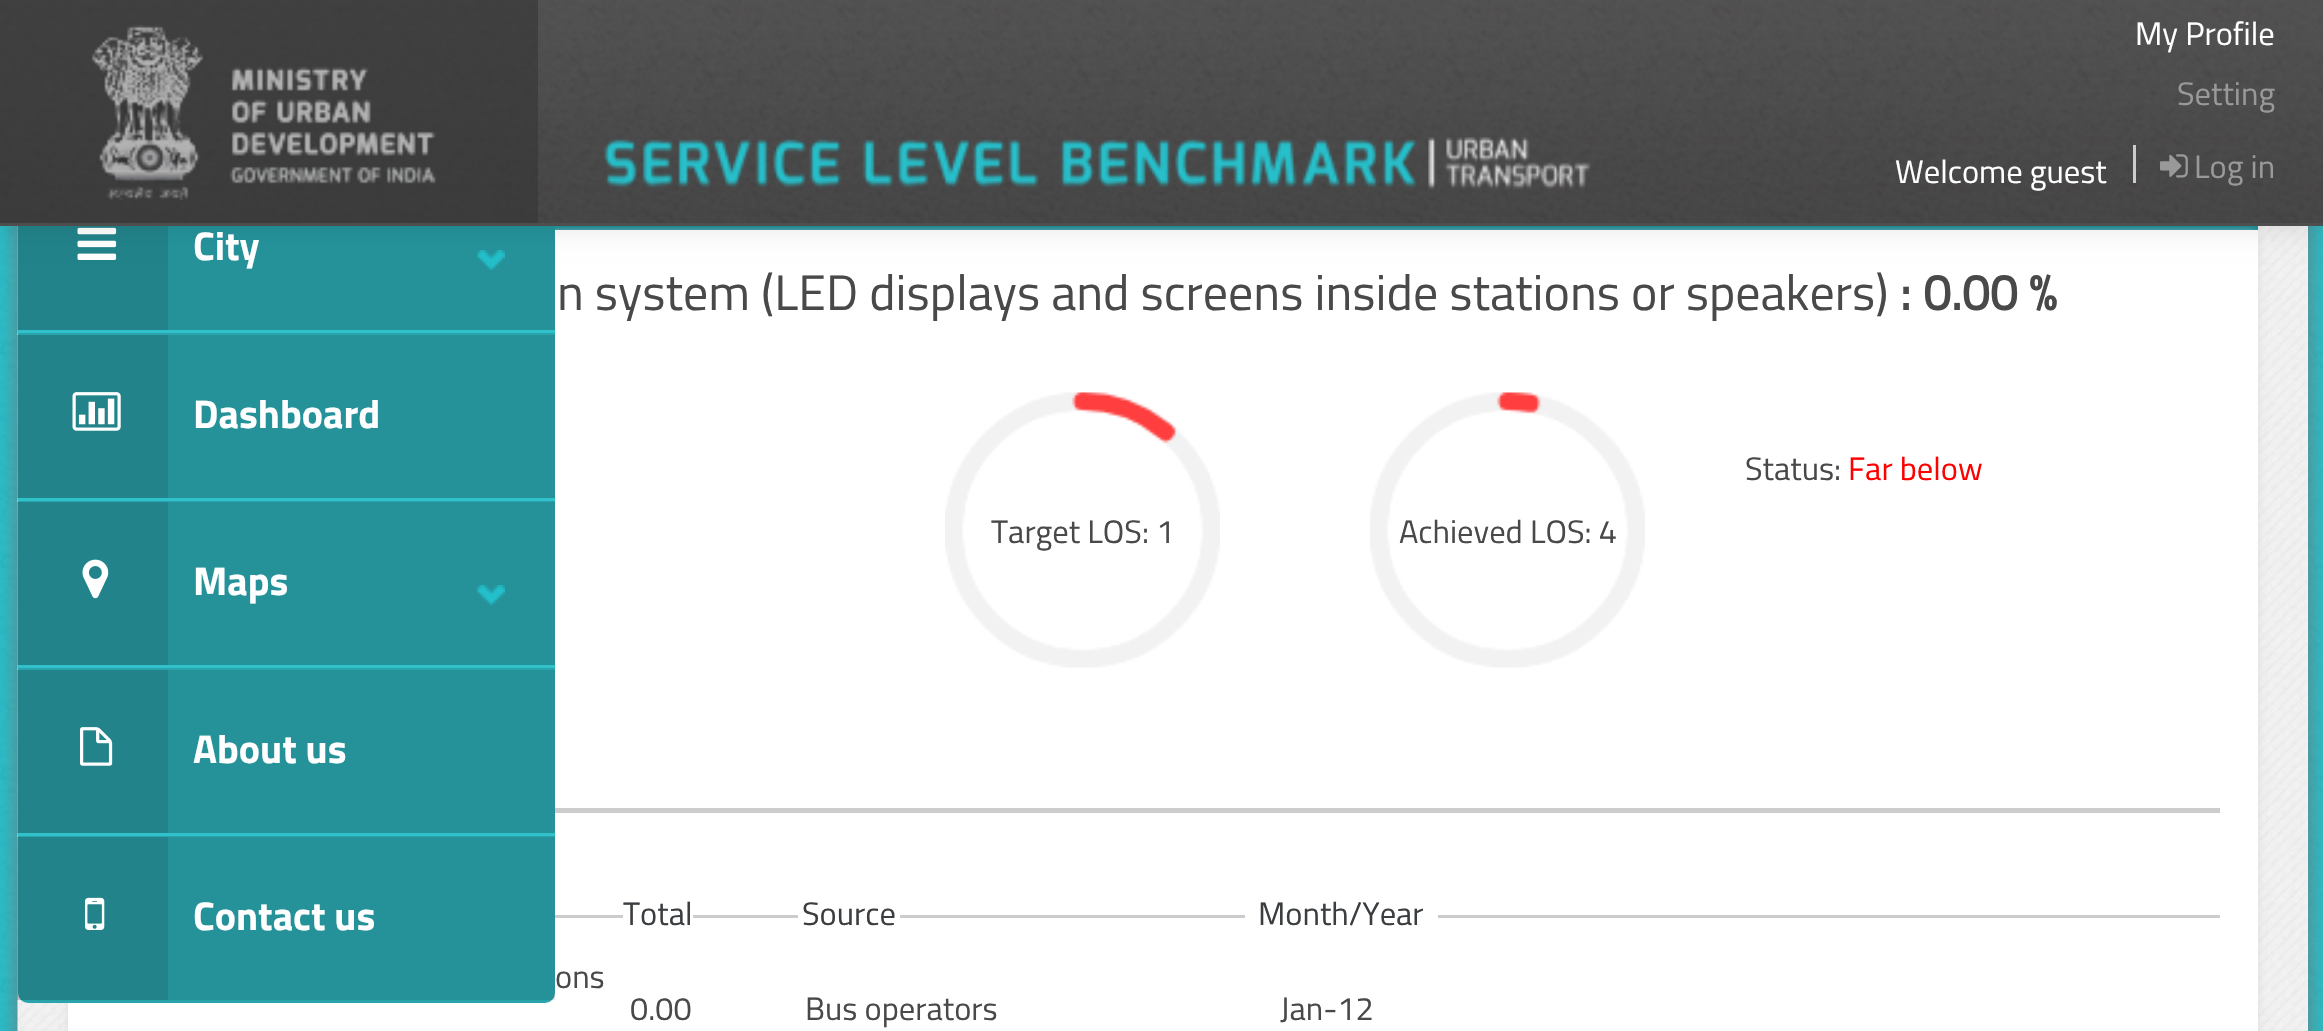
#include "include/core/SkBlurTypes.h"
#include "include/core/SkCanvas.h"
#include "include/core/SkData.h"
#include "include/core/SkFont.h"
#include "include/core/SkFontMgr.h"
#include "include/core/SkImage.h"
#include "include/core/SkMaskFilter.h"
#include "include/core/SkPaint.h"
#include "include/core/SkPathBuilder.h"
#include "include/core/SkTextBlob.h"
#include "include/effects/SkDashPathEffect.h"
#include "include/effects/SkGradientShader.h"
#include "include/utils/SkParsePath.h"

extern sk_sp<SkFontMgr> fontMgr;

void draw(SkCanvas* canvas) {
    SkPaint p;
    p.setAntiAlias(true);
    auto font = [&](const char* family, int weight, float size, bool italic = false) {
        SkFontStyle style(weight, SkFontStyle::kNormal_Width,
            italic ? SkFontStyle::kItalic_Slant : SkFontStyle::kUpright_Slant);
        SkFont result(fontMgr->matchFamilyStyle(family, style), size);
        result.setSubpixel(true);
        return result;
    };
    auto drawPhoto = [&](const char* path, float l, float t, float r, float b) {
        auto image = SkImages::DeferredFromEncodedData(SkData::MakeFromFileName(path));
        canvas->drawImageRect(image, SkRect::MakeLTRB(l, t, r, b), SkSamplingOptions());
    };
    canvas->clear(0xFFFFFFFF);
    drawPhoto("media/1.png", 0, 226, 2323, 1031);
    p.setColor(0xFF757575);
    p.setMaskFilter(SkMaskFilter::MakeBlur(kNormal_SkBlurStyle, 12.5f));
    canvas->drawRect(SkRect::MakeLTRB(18, 18, 2308, 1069), p);
    p.setMaskFilter(nullptr);
    p.setColor(0xFFF7F7F7);
    canvas->drawRect(SkRect::MakeLTRB(2307, 226, 2308, 1031), p);
    drawPhoto("media/13.png", 17, 226, 2308, 1031);
    p.setColor(0xFF1B8E97);
    canvas->drawRect(SkRect::MakeLTRB(555, 226, 2258, 230), p);
    p.setColor(0xFFDDDDDD);
    p.setMaskFilter(SkMaskFilter::MakeBlur(kNormal_SkBlurStyle, 4));
    canvas->drawRoundRect(SkRect::MakeLTRB(68, 233, 2258, 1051), 8, 8, p);
    p.setMaskFilter(nullptr);
    p.setColor(0xFFFFFFFF);
    canvas->drawRect(SkRect::MakeLTRB(68, 230, 2258, 1031), p);
    p.setColor(0xFF29A3AC);
    canvas->drawRoundRect(SkRect::MakeLTRB(18, 0, 555, 1003), 10, 10, p);
    p.setColor(0x1A000000);
    canvas->drawRect(SkRect::MakeLTRB(17, 226, 555, 333), p);
    canvas->drawRect(SkRect::MakeLTRB(17, 226, 168, 330), p);
    drawPhoto("media/6.png", 77, 227, 117, 260);
    drawPhoto("media/7.png", 477, 250, 505, 270);
    p.setMaskFilter(SkMaskFilter::MakeBlur(kNormal_SkBlurStyle, 12.5f));
    canvas->drawRect(SkRect::MakeLTRB(0, 3, 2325, 228), p);
    p.setMaskFilter(nullptr);
    drawPhoto("media/2.png", 0, 0, 2323, 223);
    p.setColor(0xFF4E4E4E);
    canvas->drawRect(SkRect::MakeLTRB(0, 223, 2323, 226), p);
    p.setColor(0x99333333);
    canvas->drawRect(SkRect::MakeLTRB(0, 0, 538, 223), p);
    drawPhoto("media/3.png", 91, 25, 436, 200);
    drawPhoto("media/4.png", 604, 137, 1591, 190);
    auto font1 = font("Titillium Web", 400, 32.5f);
    p.setColor(0xFFFFFFFF);
    canvas->drawString("My Profile", 2135, 45, font1, p);
    p.setColor(0xFF999999);
    canvas->drawString("Setting", 2177, 105, font1, p);
    p.setColor(0xFFCCCCCC);
    canvas->drawRect(SkRect::MakeLTRB(2133, 145, 2136, 183), p);
    p.setColor(0xFFFFFFFF);
    canvas->drawString("Welcome guest", 1895, 183, font1, p);
    drawPhoto("media/5.png", 2160, 154, 2188, 178);
    p.setColor(0xFF999999);
    canvas->drawString("Log in", 2194, 178, font1, p);
    p.setColor(0xFF30C1CB);
    canvas->drawRect(SkRect::MakeLTRB(18, 330, 555, 333), p);
    auto font2 = font("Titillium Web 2", 700, 40);
    p.setColor(0xFFFFFFFF);
    canvas->drawString("City", 193, 260, font2, p);
    {
        const struct { float l, t, r, b; SkColor color; } items[] = {
            {17, 335, 555, 500, 0x1A000000},
            {18, 498, 555, 501, 0xFF30C1CB},
            {17, 335, 168, 498, 0x1A000000},
        };
        for (auto [l, t, r, b, color] : items) {
            p.setColor(color);
            canvas->drawRect(SkRect::MakeLTRB(l, t, r, b), p);
        }
    }
    drawPhoto("media/8.png", 72, 392, 121, 431);
    p.setColor(0xFFFFFFFF);
    canvas->drawString("Dashboard", 193, 428, font2, p);
    {
        const struct { float l, t, r, b; SkColor color; } items[] = {
            {17, 502, 555, 668, 0x1A000000},
            {18, 665, 555, 668, 0xFF30C1CB},
            {17, 502, 168, 665, 0x1A000000},
        };
        for (auto [l, t, r, b, color] : items) {
            p.setColor(color);
            canvas->drawRect(SkRect::MakeLTRB(l, t, r, b), p);
        }
    }
    drawPhoto("media/9.png", 82, 559, 109, 599);
    p.setColor(0xFFFFFFFF);
    canvas->drawString("Maps", 193, 595, font2, p);
    drawPhoto("media/10.png", 477, 585, 505, 605);
    {
        const struct { float l, t, r, b; SkColor color; } items[] = {
            {17, 670, 555, 835, 0x1A000000},
            {18, 833, 555, 836, 0xFF30C1CB},
            {17, 670, 168, 833, 0x1A000000},
        };
        for (auto [l, t, r, b, color] : items) {
            p.setColor(color);
            canvas->drawRect(SkRect::MakeLTRB(l, t, r, b), p);
        }
    }
    drawPhoto("media/11.png", 80, 727, 113, 766);
    p.setColor(0xFFFFFFFF);
    canvas->drawString("About us", 193, 763, font2, p);
    p.setColor(0x1A000000);
    canvas->drawRect(SkRect::MakeLTRB(17, 837, 555, 1000), p);
    canvas->drawRect(SkRect::MakeLTRB(17, 837, 168, 1000), p);
    drawPhoto("media/12.png", 85, 897, 105, 930);
    p.setColor(0xFFFFFFFF);
    canvas->drawString("Contact us", 193, 930, font2, p);
    auto font3 = font("Titillium Web", 400, 50);
    p.setColor(0xFF494949);
    canvas->drawString("n system (LED displays and screens inside stations or speakers)", 557, 310, font3, p);
    auto font4 = font("Titillium Web", 700, 50);
    canvas->drawString(":", 1900, 310, font4, p);
    canvas->drawString("0.00 %", 1923, 310, font4, p);
    canvas->drawString("Status:", 1745, 480, font1, p);
    p.setColor(0xFFFF0000);
    canvas->drawString("Far below", 1848, 480, font1, p);
    p.setColor(0xFF494949);
    canvas->drawString("Target LOS: 1", 991, 543, font1, p);
    drawPhoto("media/14.png", 945, 392, 1220, 668);
    canvas->drawString("Achieved LOS: 4", 1399, 543, font1, p);
    drawPhoto("media/15.png", 1370, 392, 1645, 668);
    {
        const struct { float l, t, r, b; SkColor color; } items[] = {
            {555, 808, 2220, 813, 0xFFCCCCCC},
            {555, 915, 2220, 918, 0xFFCCCCCC},
            {623, 915, 693, 918, 0xFFFFFFFF},
        };
        for (auto [l, t, r, b, color] : items) {
            p.setColor(color);
            canvas->drawRect(SkRect::MakeLTRB(l, t, r, b), p);
        }
    }
    p.setColor(0xFF3B3E40);
    canvas->drawString("Total", 623, 925, font1, p);
    p.setColor(0xFFFFFFFF);
    canvas->drawRect(SkRect::MakeLTRB(798, 915, 900, 918), p);
    p.setColor(0xFF3B3E40);
    canvas->drawString("Source", 802, 925, font1, p);
    p.setColor(0xFFFFFFFF);
    canvas->drawRect(SkRect::MakeLTRB(1245, 915, 1438, 918), p);
    p.setColor(0xFF3B3E40);
    canvas->drawString("Month/Year", 1258, 925, font1, p);
    p.setColor(0xFF494949);
    {
        const struct { const char* s; float x, y; } items[] = {
            {"ons", 555, 988},
            {"0.00", 630, 1020},
            {"Bus operators", 805, 1020},
            {"Jan-12", 1280, 1020},
        };
        for (auto [s, x, y] : items) {
            canvas->drawString(s, x, y, font1, p);
        }
    }
}
